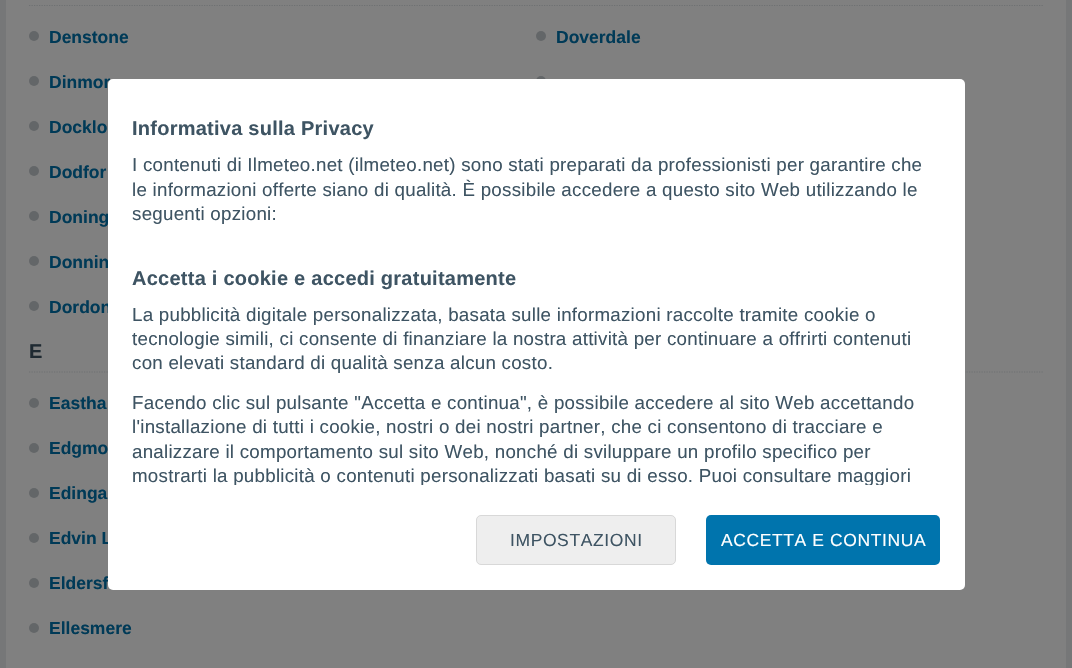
#include "include/core/SkBlurTypes.h"
#include "include/core/SkCanvas.h"
#include "include/core/SkData.h"
#include "include/core/SkFont.h"
#include "include/core/SkFontMgr.h"
#include "include/core/SkImage.h"
#include "include/core/SkMaskFilter.h"
#include "include/core/SkPaint.h"
#include "include/core/SkPathBuilder.h"
#include "include/core/SkTextBlob.h"
#include "include/effects/SkDashPathEffect.h"
#include "include/effects/SkGradientShader.h"
#include "include/utils/SkParsePath.h"

extern sk_sp<SkFontMgr> fontMgr;

void draw(SkCanvas* canvas) {
    SkPaint p;
    p.setAntiAlias(true);
    auto font = [&](const char* family, int weight, float size, bool italic = false) {
        SkFontStyle style(weight, SkFontStyle::kNormal_Width,
            italic ? SkFontStyle::kItalic_Slant : SkFontStyle::kUpright_Slant);
        SkFont result(fontMgr->matchFamilyStyle(family, style), size);
        result.setSubpixel(true);
        return result;
    };
    auto drawTracked = [&](const char* s, float x, float y, const SkFont& font, const SkPaint& ink, float letter, float word) {
        std::vector<SkGlyphID> glyphs(font.countText(s, strlen(s), SkTextEncoding::kUTF8));
        std::vector<float> xs(glyphs.size());
        font.textToGlyphs(s, strlen(s), SkTextEncoding::kUTF8, glyphs);
        font.getXPos(glyphs, xs, x);
        float extra = 0;
        for (size_t i = 0; i < glyphs.size(); i++) {
            xs[i] += extra;
            extra += letter + word * (glyphs[i] == font.unicharToGlyph(' '));
        }
        canvas->drawTextBlob(SkTextBlob::MakeFromPosHGlyphs(glyphs, xs, y, font), 0, 0, ink);
    };
    canvas->clear(0xFF767778);
    p.setColor(0xFF808080);
    canvas->drawRect(SkRect::MakeLTRB(6, 0, 1066, 668), p);
    p.setStyle(SkPaint::kStroke_Style);
    p.setStrokeWidth(1.2f);
    p.setColor(0xFF6E7072);
    p.setPathEffect(SkDashPathEffect::Make({{1.25f, 1.25f}}, 0));
    canvas->drawPath(SkPathBuilder().moveTo(29, 5.5f).lineTo(1044, 5.5f).detach(), p);
    p.setPathEffect(nullptr);
    p.setStyle(SkPaint::kFill_Style);
    p.setColor(0xFF636668);
    canvas->drawCircle(34, 36, 5, p);
    auto font1 = font("Liberation Sans", 700, 17.5f);
    p.setColor(0xFF003A57);
    canvas->drawString("Denstone", 49, 43, font1, p);
    p.setColor(0xFF636668);
    canvas->drawCircle(541, 36, 5, p);
    p.setColor(0xFF003A57);
    canvas->drawString("Doverdale", 556, 43, font1, p);
    p.setColor(0xFF636668);
    canvas->drawCircle(34, 81, 5, p);
    p.setColor(0xFF003A57);
    canvas->drawString("Dinmor", 49, 88, font1, p);
    p.setColor(0xFF636668);
    canvas->drawCircle(541, 81, 5, p);
    canvas->drawCircle(34, 126, 5, p);
    p.setColor(0xFF003A57);
    canvas->drawString("Docklo", 49, 133, font1, p);
    p.setColor(0xFF636668);
    canvas->drawCircle(34, 171, 5, p);
    p.setColor(0xFF003A57);
    canvas->drawString("Dodfor", 49, 178, font1, p);
    p.setColor(0xFF636668);
    canvas->drawCircle(34, 216, 5, p);
    p.setColor(0xFF003A57);
    canvas->drawString("Doning", 49, 223, font1, p);
    p.setColor(0xFF636668);
    canvas->drawCircle(34, 261, 5, p);
    p.setColor(0xFF003A57);
    canvas->drawString("Donnin", 49, 268, font1, p);
    p.setColor(0xFF636668);
    canvas->drawCircle(34, 306, 5, p);
    p.setColor(0xFF003A57);
    canvas->drawString("Dordon", 49, 313, font1, p);
    p.setStyle(SkPaint::kStroke_Style);
    p.setColor(0xFF6E7072);
    p.setPathEffect(SkDashPathEffect::Make({{1.25f, 1.25f}}, 0));
    canvas->drawPath(SkPathBuilder().moveTo(29, 372).lineTo(1044, 372).detach(), p);
    p.setPathEffect(nullptr);
    auto font2 = font("Liberation Sans", 700, 20);
    p.setStyle(SkPaint::kFill_Style);
    p.setColor(0xFF1F2A32);
    canvas->drawString("E", 29, 358, font2, p);
    p.setColor(0xFF636668);
    canvas->drawCircle(34, 403, 5, p);
    p.setColor(0xFF003A57);
    canvas->drawString("Eastha", 49, 409, font1, p);
    p.setColor(0xFF636668);
    canvas->drawCircle(34, 448, 5, p);
    p.setColor(0xFF003A57);
    canvas->drawString("Edgmo", 49, 454, font1, p);
    p.setColor(0xFF636668);
    canvas->drawCircle(34, 493, 5, p);
    p.setColor(0xFF003A57);
    canvas->drawString("Edinga", 49, 499, font1, p);
    p.setColor(0xFF636668);
    canvas->drawCircle(34, 538, 5, p);
    p.setColor(0xFF003A57);
    canvas->drawString("Edvin L", 49, 544, font1, p);
    p.setColor(0xFF636668);
    canvas->drawCircle(34, 583, 5, p);
    p.setColor(0xFF003A57);
    canvas->drawString("Eldersf", 49, 589, font1, p);
    p.setColor(0xFF636668);
    canvas->drawCircle(34, 628, 5, p);
    p.setColor(0xFF003A57);
    canvas->drawString("Ellesmere", 49, 634, font1, p);
    p.setColor(0xFFFFFFFF);
    canvas->drawRoundRect(SkRect::MakeLTRB(108, 79, 965, 590), 5, 5, p);
    p.setColor(0xFF3E5463);
    drawTracked("Informativa sulla Privacy", 132, 135, font2, p, 0.25f, 0);
    auto font3 = font("Liberation Sans", 400, 18.75f);
    {
        const struct { const char* s; float x, y; } items[] = {
            {"I contenuti di Ilmeteo.net (ilmeteo.net) sono stati preparati da professionisti per garantire che", 132, 171},
            {"le informazioni offerte siano di qualità. È possibile accedere a questo sito Web utilizzando le", 132, 196},
            {"seguenti opzioni:", 132, 220},
        };
        for (auto [s, x, y] : items) {
            drawTracked(s, x, y, font3, p, 0.25f, 0);
        }
    }
    drawTracked("Accetta i cookie e accedi gratuitamente", 132, 285, font2, p, 0.25f, 0);
    {
        const struct { const char* s; float x, y; } items[] = {
            {"La pubblicità digitale personalizzata, basata sulle informazioni raccolte tramite cookie o", 132, 321},
            {"tecnologie simili, ci consente di finanziare la nostra attività per continuare a offrirti contenuti", 132, 345},
            {"con elevati standard di qualità senza alcun costo.", 132, 369},
            {"Facendo clic sul pulsante \"Accetta e continua\", è possibile accedere al sito Web accettando", 132, 409},
            {"l'installazione di tutti i cookie, nostri o dei nostri partner, che ci consentono di tracciare e", 132, 433},
            {"analizzare il comportamento sul sito Web, nonché di sviluppare un profilo specifico per", 132, 458},
        };
        for (auto [s, x, y] : items) {
            drawTracked(s, x, y, font3, p, 0.25f, 0);
        }
    }
    canvas->save();
    canvas->clipRect(SkRect::MakeLTRB(133, 116, 940, 485));
    drawTracked("mostrarti la pubblicità o contenuti personalizzati basati su di esso. Puoi consultare maggiori", 132, 482, font3, p, 0.25f, 0);
    canvas->restore();
    p.setColor(0xFFEEEEEE);
    canvas->drawRoundRect(SkRect::MakeLTRB(476.5f, 515.5f, 675.5f, 564.5f), 4.5f, 4.5f, p);
    p.setStyle(SkPaint::kStroke_Style);
    p.setStrokeWidth(1);
    p.setColor(0xFFD8D8D8);
    canvas->drawRoundRect(SkRect::MakeLTRB(476.5f, 515.5f, 675.5f, 564.5f), 4.5f, 4.5f, p);
    auto font4 = font("Liberation Sans", 400, 17.5f);
    p.setStyle(SkPaint::kFill_Style);
    p.setColor(0xFF3E5463);
    drawTracked("IMPOSTAZIONI", 510, 546, font4, p, 0.6f, 0);
    p.setColor(0xFF0074AD);
    canvas->drawRoundRect(SkRect::MakeLTRB(706, 515, 940, 565), 5, 5, p);
    p.setColor(0xFFFFFFFF);
    drawTracked("ACCETTA E CONTINUA", 721, 546, font4, p, 0.6f, 0);
}
